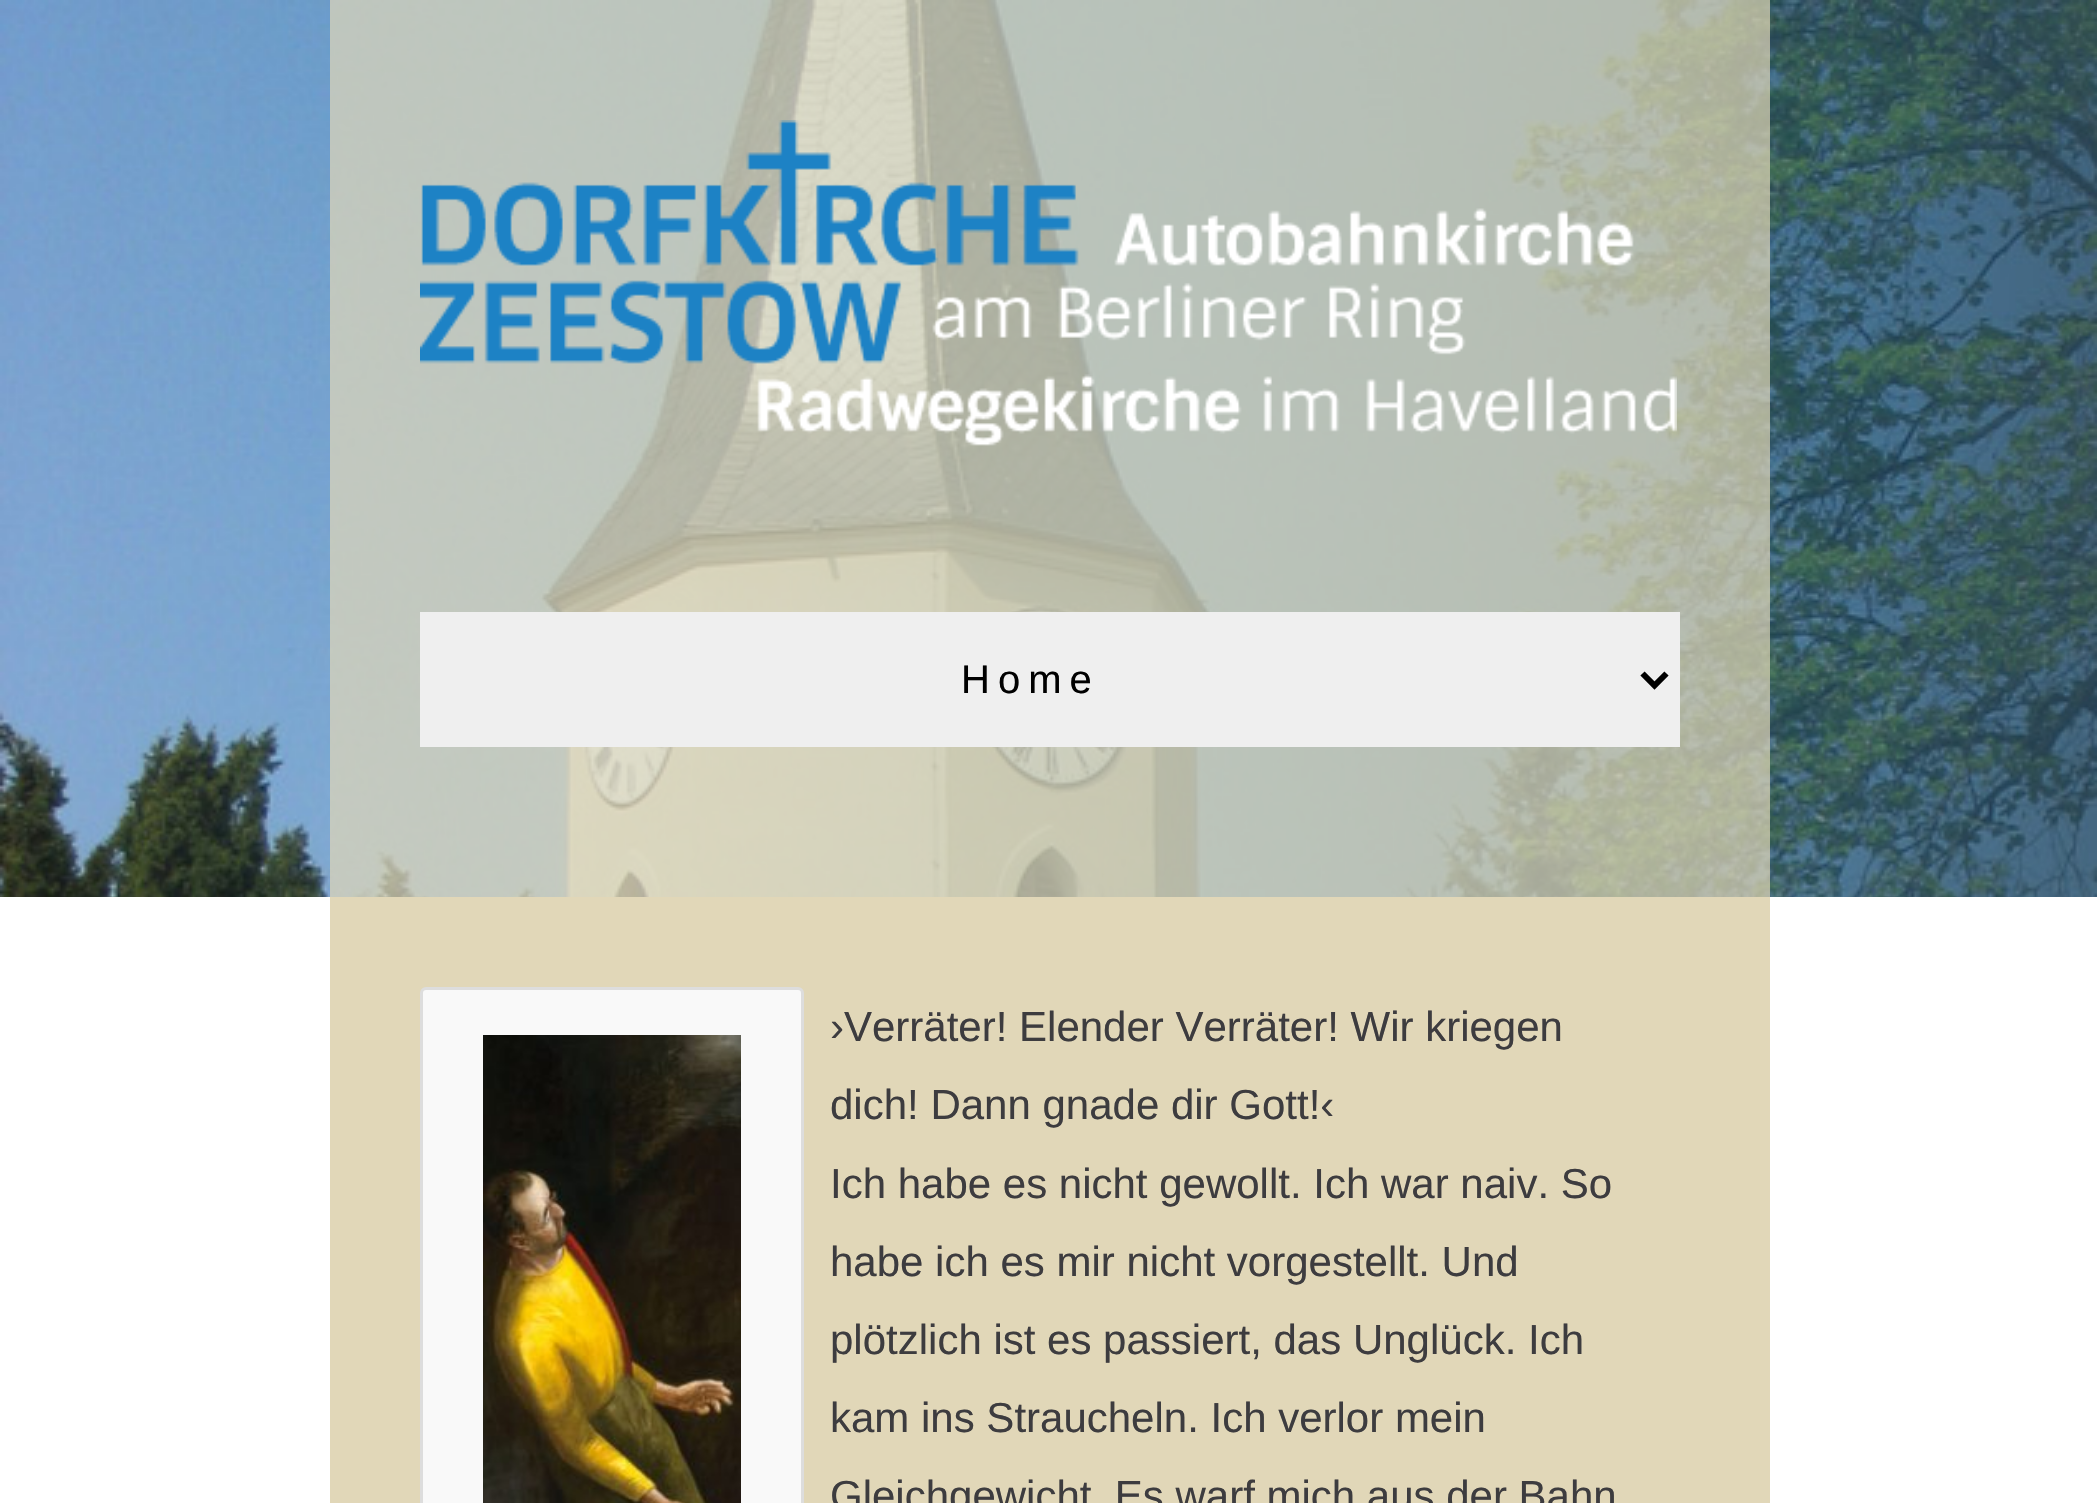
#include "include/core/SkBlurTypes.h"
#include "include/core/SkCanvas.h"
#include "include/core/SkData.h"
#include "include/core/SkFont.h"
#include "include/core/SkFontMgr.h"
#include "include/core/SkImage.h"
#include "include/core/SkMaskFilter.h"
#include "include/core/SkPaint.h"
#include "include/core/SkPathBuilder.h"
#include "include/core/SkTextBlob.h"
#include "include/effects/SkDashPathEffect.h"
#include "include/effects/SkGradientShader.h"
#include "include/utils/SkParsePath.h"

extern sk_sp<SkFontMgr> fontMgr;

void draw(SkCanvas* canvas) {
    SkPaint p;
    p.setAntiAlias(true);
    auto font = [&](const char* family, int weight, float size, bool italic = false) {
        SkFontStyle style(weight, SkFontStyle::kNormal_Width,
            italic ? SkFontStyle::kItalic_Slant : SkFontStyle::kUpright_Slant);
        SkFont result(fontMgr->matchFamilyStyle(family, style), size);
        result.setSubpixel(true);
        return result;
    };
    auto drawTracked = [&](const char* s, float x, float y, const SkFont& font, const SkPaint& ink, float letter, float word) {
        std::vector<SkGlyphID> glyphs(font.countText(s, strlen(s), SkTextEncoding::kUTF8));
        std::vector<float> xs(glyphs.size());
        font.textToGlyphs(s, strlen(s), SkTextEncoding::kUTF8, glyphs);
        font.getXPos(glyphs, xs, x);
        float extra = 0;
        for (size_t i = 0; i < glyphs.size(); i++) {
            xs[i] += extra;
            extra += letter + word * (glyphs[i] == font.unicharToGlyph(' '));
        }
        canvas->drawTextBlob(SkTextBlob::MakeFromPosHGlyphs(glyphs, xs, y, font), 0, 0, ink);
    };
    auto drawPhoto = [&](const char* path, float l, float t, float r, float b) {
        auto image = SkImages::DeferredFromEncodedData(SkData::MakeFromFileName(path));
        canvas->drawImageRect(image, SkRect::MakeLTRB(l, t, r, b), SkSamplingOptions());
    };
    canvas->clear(0xFFFFFFFF);
    drawPhoto("media/1.png", 0, 0, 2097, 897);
    p.setColor(0xB3E1D7B8);
    canvas->drawRect(SkRect::MakeLTRB(330, 0, 1770, 897), p);
    drawPhoto("media/2.png", 420, 120, 1677, 446);
    p.setColor(0xFFEFEFEF);
    canvas->drawRect(SkRect::MakeLTRB(420, 612, 1680, 747), p);
    p.setStyle(SkPaint::kStroke_Style);
    p.setStrokeWidth(6);
    p.setColor(0xFF000000);
    canvas->drawPath(SkPathBuilder().moveTo(1642.5f, 673.5f).lineTo(1654.5f, 685.5f).lineTo(1666.5f, 673.5f).detach(), p);
    auto font1 = font("Liberation Sans", 400, 40);
    p.setStyle(SkPaint::kFill_Style);
    drawTracked("Home", 961, 693, font1, p, 8, 0);
    p.setColor(0xFFE1D7B8);
    canvas->drawRect(SkRect::MakeLTRB(330, 897, 1770, 1503), p);
    p.setColor(0xFFF9F9F9);
    canvas->drawRoundRect(SkRect::MakeLTRB(421.5f, 988.5f, 802.5f, 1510.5f), 4.5f, 4.5f, p);
    p.setStyle(SkPaint::kStroke_Style);
    p.setStrokeWidth(3);
    p.setColor(0xFFDDDDDD);
    canvas->drawRoundRect(SkRect::MakeLTRB(421.5f, 988.5f, 802.5f, 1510.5f), 4.5f, 4.5f, p);
    drawPhoto("media/3.png", 483, 1035, 741, 1503);
    auto font2 = font("Liberation Sans", 400, 42);
    p.setStyle(SkPaint::kFill_Style);
    p.setColor(0xFF3D3C3F);
    {
        const struct { const char* s; float x, y; } items[] = {
            {"›Verräter! Elender Verräter! Wir kriegen", 830, 1041},
            {"dich! Dann gnade dir Gott!‹", 830, 1119},
            {"Ich habe es nicht gewollt. Ich war naiv. So", 830, 1198},
            {"habe ich es mir nicht vorgestellt. Und", 830, 1276},
            {"plötzlich ist es passiert, das Unglück. Ich", 830, 1354},
            {"kam ins Straucheln. Ich verlor mein", 830, 1432},
            {"Gleichgewicht. Es warf mich aus der Bahn", 830, 1510},
        };
        for (auto [s, x, y] : items) {
            canvas->drawString(s, x, y, font2, p);
        }
    }
}
